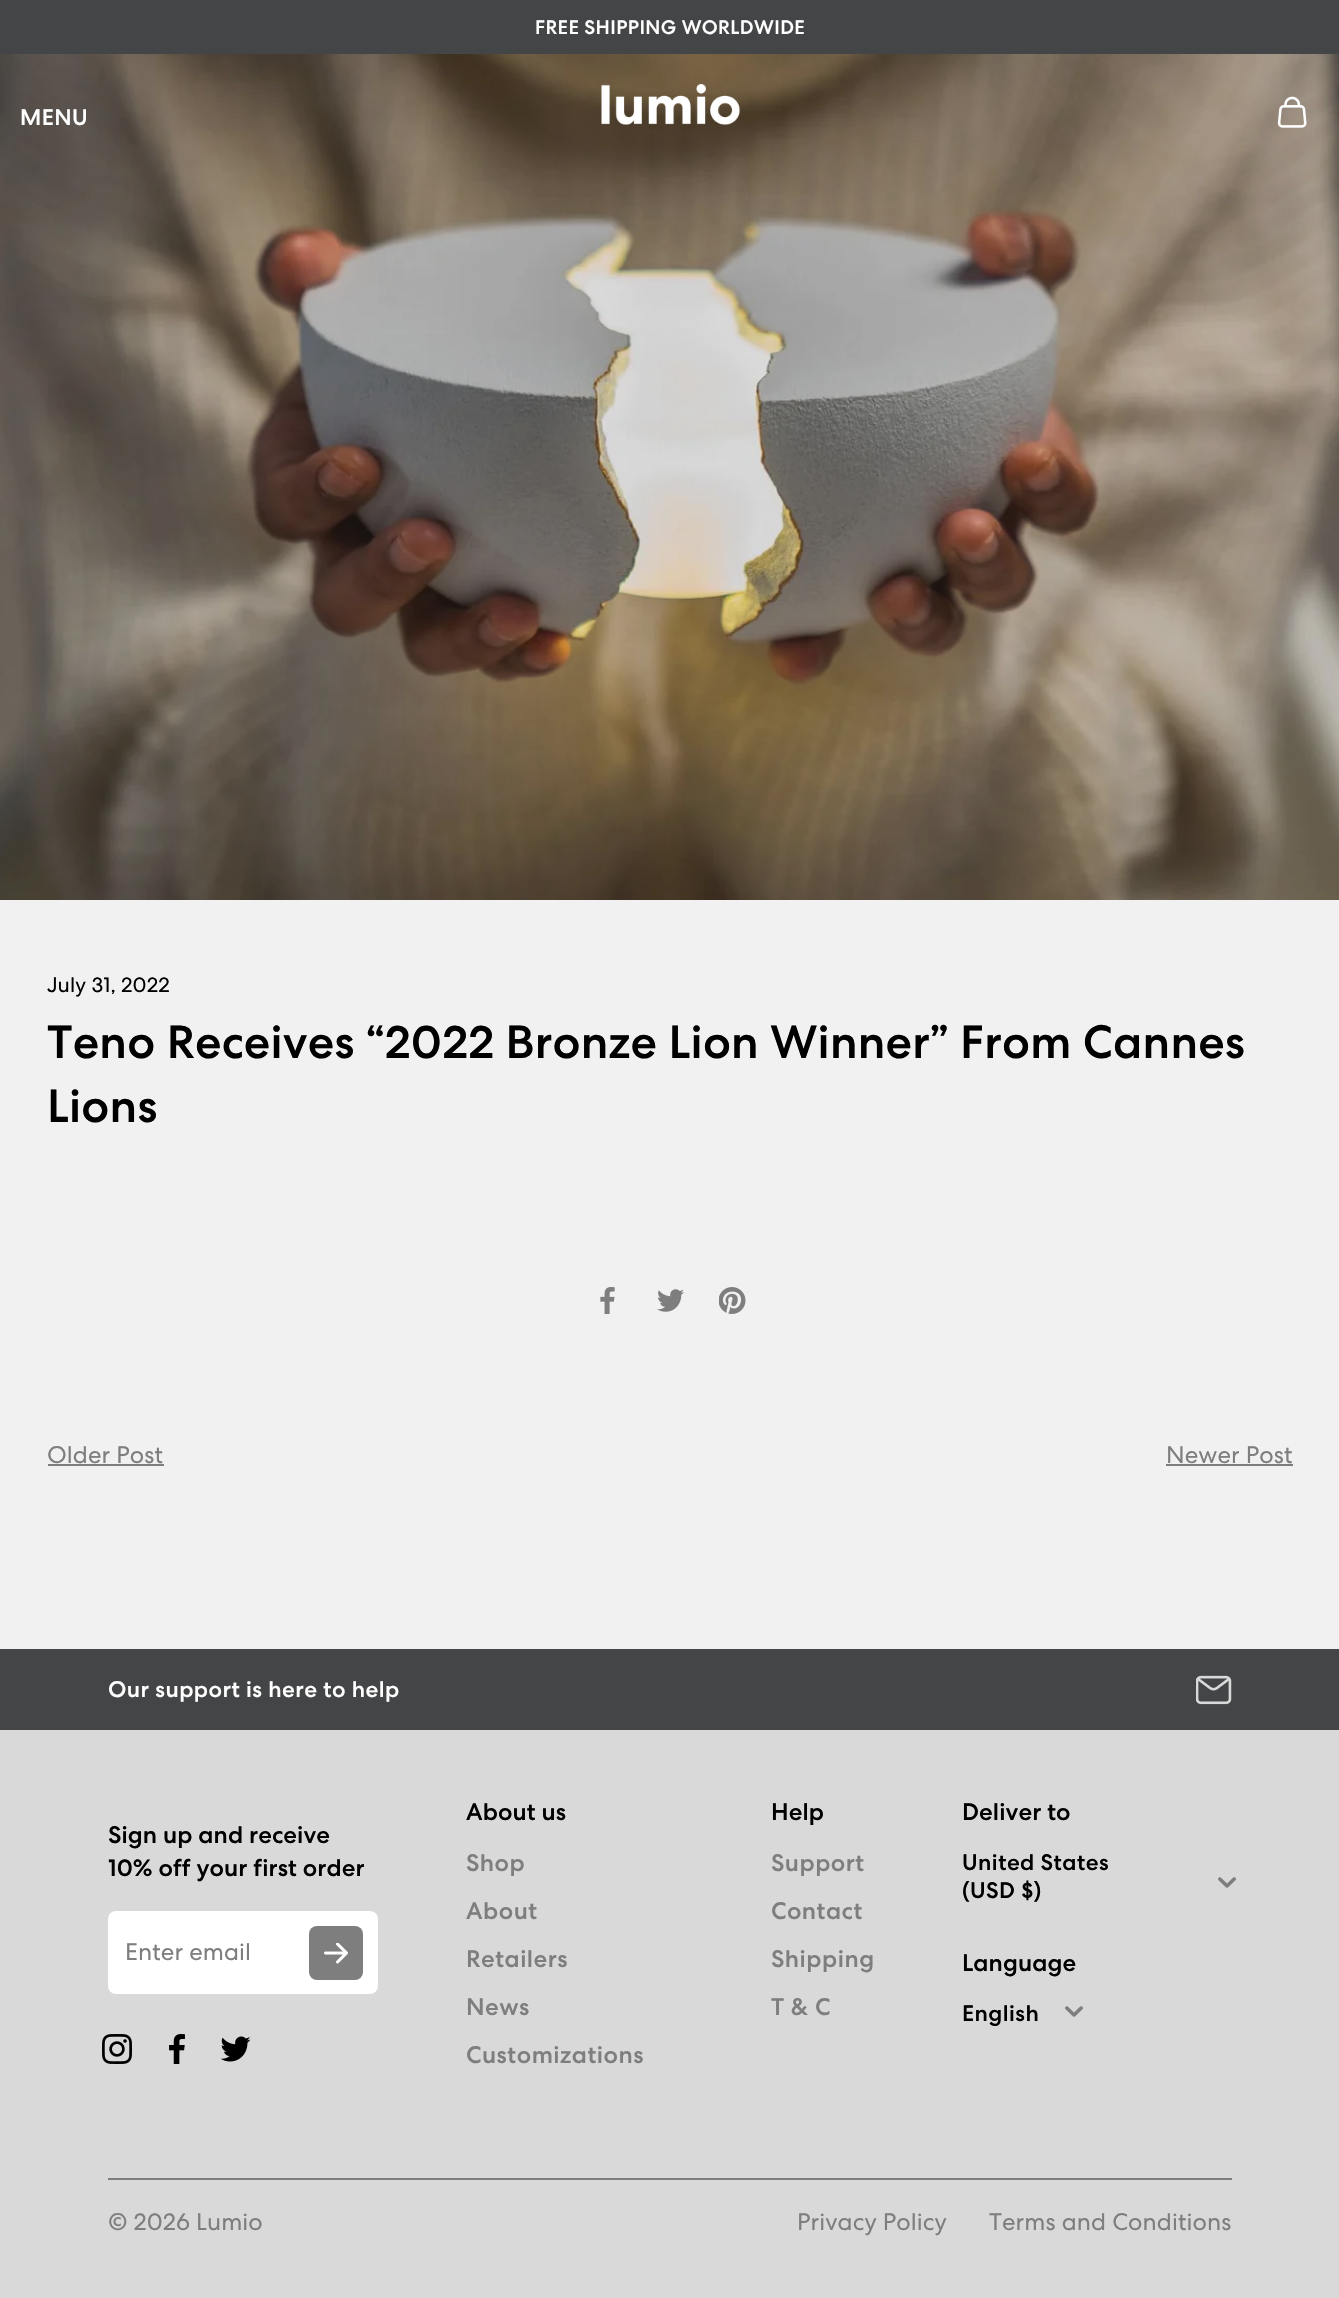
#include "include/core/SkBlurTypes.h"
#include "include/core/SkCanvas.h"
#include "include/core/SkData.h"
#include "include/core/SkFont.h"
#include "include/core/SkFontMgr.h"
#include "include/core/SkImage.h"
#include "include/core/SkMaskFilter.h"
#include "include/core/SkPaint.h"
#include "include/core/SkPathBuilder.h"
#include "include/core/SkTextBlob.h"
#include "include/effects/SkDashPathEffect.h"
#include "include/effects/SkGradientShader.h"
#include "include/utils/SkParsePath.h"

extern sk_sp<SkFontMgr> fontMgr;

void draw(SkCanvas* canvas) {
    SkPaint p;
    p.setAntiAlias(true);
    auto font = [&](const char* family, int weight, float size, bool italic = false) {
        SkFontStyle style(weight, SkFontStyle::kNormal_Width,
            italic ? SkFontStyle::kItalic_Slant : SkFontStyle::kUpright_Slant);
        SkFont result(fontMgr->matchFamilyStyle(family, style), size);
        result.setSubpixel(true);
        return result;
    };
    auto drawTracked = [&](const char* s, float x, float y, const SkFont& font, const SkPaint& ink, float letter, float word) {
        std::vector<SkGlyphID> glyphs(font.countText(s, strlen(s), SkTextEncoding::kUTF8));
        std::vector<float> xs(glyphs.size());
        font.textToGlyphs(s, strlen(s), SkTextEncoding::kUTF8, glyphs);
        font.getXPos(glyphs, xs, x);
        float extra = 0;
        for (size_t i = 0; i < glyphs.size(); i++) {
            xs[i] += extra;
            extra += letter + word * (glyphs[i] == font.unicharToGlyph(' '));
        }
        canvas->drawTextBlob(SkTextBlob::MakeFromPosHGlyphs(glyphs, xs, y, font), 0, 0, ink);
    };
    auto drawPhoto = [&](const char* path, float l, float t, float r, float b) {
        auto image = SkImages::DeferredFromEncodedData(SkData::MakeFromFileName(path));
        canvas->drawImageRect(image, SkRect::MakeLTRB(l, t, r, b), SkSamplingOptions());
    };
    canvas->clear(0xFFF1F1F1);
    p.setColor(0xFF444546);
    canvas->drawRect(SkRect::MakeLTRB(0, 0, 1339, 54), p);
    auto font1 = font("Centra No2", 500, 19.5f);
    p.setColor(0xFFFFFFFF);
    drawTracked("FREE SHIPPING WORLDWIDE", 535, 34, font1, p, 0.4f, 0);
    drawPhoto("media/3.png", 0, 54, 1339, 900);
    auto font2 = font("Centra No2", 500, 22.5f);
    drawTracked("MENU", 20, 125, font2, p, 0.45f, 0);
    drawPhoto("media/1.png", 601, 84, 740, 125);
    drawPhoto("media/2.png", 1277, 96, 1307, 128);
    auto font3 = font("Centra No2", 400, 21);
    p.setColor(0xFF000000);
    drawTracked("July 31, 2022", 47, 992, font3, p, 0.1f, 0);
    auto font4 = font("Centra No2", 500, 46.5f);
    drawTracked("Teno Receives “2022 Bronze Lion Winner” From Cannes", 47, 1058, font4, p, 0.23f, 0);
    drawTracked("Lions", 47, 1122, font4, p, 0.23f, 0);
    drawPhoto("media/4.png", 600, 1287, 615, 1314);
    drawPhoto("media/5.png", 657, 1289, 684, 1312);
    drawPhoto("media/6.png", 719, 1287, 746, 1314);
    auto font5 = font("Centra No2", 400, 24);
    p.setColor(0xFF7E7E7E);
    drawTracked("Older Post", 47, 1463, font5, p, 0.1f, 0);
    canvas->drawRect(SkRect::MakeLTRB(48, 1464, 164, 1466), p);
    drawTracked("Newer Post", 1166, 1463, font5, p, 0.1f, 0);
    {
        const struct { float l, t, r, b; SkColor color; } items[] = {
            {1166, 1464, 1293, 1466, 0xFF7E7E7E},
            {0, 1730, 1339, 2298, 0xFFD9D9D9},
            {0, 1649, 1339, 1730, 0xFF444546},
        };
        for (auto [l, t, r, b, color] : items) {
            p.setColor(color);
            canvas->drawRect(SkRect::MakeLTRB(l, t, r, b), p);
        }
    }
    p.setColor(0xFFFFFFFF);
    drawTracked("Our support is here to help", 108, 1697, font2, p, 0.45f, 0);
    drawPhoto("media/7.png", 1196, 1675, 1232, 1705);
    auto font6 = font("Centra No2", 500, 24);
    p.setColor(0xFF000000);
    drawTracked("Sign up and receive", 108, 1843, font6, p, 0.1f, 0);
    drawTracked("10% off your first order", 108, 1876, font6, p, 0.1f, 0);
    p.setColor(0xFFFFFFFF);
    canvas->drawRoundRect(SkRect::MakeLTRB(108, 1911, 378, 1994), 8, 8, p);
    p.setColor(0xFF7E7E7E);
    drawTracked("Enter email", 125, 1960, font5, p, 0.1f, 0);
    canvas->drawRoundRect(SkRect::MakeLTRB(309, 1926, 363, 1980), 8, 8, p);
    drawPhoto("media/8.png", 324, 1943, 348, 1964);
    drawPhoto("media/9.png", 102, 2034, 132, 2064);
    drawPhoto("media/10.png", 169, 2034, 185, 2064);
    drawPhoto("media/11.png", 221, 2036, 251, 2062);
    p.setColor(0xFF000000);
    drawTracked("About us", 466, 1820, font6, p, 0.1f, 0);
    p.setColor(0xFF7E7E7E);
    {
        const struct { const char* s; float x, y; } items[] = {
            {"Shop", 466, 1871},
            {"About", 466, 1919},
            {"Retailers", 466, 1967},
            {"News", 466, 2015},
            {"Customizations", 466, 2063},
        };
        for (auto [s, x, y] : items) {
            drawTracked(s, x, y, font6, p, 0.5f, 0);
        }
    }
    p.setColor(0xFF000000);
    drawTracked("Help", 771, 1820, font6, p, 0.1f, 0);
    p.setColor(0xFF7E7E7E);
    {
        const struct { const char* s; float x, y; } items[] = {
            {"Support", 771, 1871},
            {"Contact", 771, 1919},
            {"Shipping", 771, 1967},
            {"T & C", 771, 2015},
        };
        for (auto [s, x, y] : items) {
            drawTracked(s, x, y, font6, p, 0.5f, 0);
        }
    }
    p.setColor(0xFF000000);
    drawTracked("Deliver to", 962, 1820, font6, p, 0.1f, 0);
    drawTracked("United States", 962, 1870, font2, p, 0.45f, 0);
    drawTracked("(USD $)", 962, 1898, font2, p, 0.45f, 0);
    drawPhoto("media/12.png", 1218, 1877, 1236, 1888);
    drawTracked("Language", 962, 1971, font6, p, 0.1f, 0);
    drawTracked("English", 962, 2021, font2, p, 0.45f, 0);
    drawPhoto("media/12.png", 1065, 2006, 1083, 2017);
    p.setColor(0xFF7E7E7E);
    canvas->drawRect(SkRect::MakeLTRB(108, 2178, 1232, 2180), p);
    {
        const struct { const char* s; float x, y; } items[] = {
            {"© 2026 Lumio", 108, 2230},
            {"Privacy Policy", 797, 2230},
            {"Terms and Conditions", 989, 2230},
        };
        for (auto [s, x, y] : items) {
            drawTracked(s, x, y, font5, p, 0.1f, 0);
        }
    }
}
